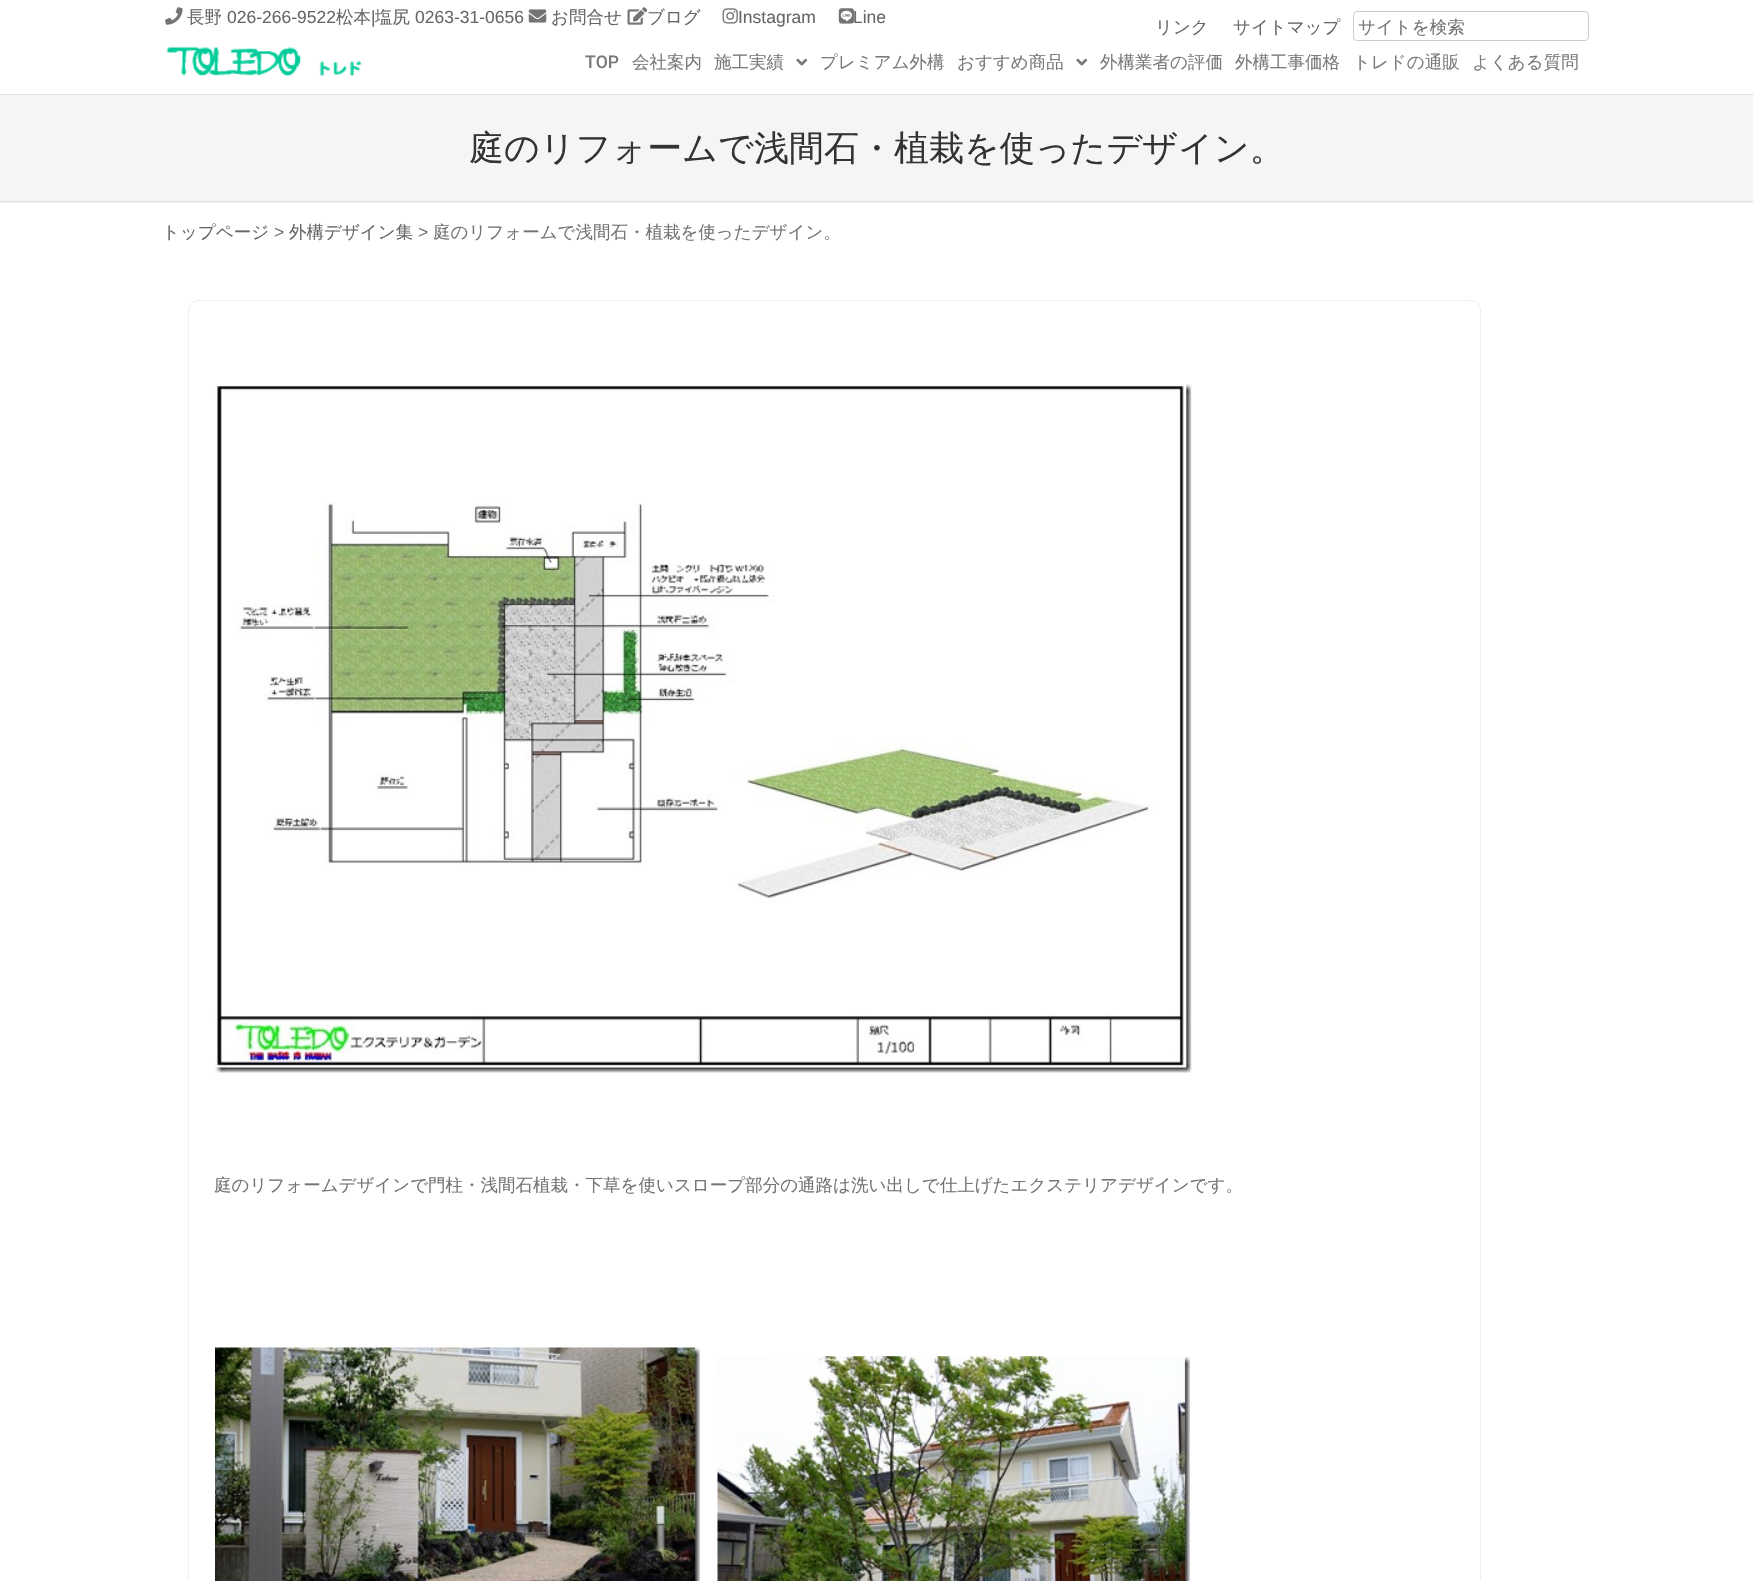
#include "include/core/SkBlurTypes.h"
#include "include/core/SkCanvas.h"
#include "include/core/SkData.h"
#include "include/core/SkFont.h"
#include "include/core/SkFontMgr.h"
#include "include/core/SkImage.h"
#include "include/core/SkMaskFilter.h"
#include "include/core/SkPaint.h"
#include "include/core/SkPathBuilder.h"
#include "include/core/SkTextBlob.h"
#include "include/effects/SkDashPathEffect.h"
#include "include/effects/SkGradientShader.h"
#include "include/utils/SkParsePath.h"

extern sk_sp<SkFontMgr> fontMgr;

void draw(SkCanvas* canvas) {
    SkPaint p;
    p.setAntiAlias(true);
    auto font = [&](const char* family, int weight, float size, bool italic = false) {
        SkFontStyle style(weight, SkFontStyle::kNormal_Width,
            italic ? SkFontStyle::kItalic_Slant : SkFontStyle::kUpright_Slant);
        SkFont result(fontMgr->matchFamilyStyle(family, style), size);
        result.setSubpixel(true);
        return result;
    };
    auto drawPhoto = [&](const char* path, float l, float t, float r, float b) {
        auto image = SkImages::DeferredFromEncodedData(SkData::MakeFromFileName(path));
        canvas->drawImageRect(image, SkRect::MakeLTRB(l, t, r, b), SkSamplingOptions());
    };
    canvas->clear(0xFFFFFFFF);
    drawPhoto("media/1.png", 165, 7, 183, 25);
    auto font1 = font("WenQuanYi Zen Hei", 500, 17.5f);
    p.setColor(0xFF666666);
    canvas->drawString("長野", 187, 23, font1, p);
    auto font2 = font("Liberation Sans", 400, 17.5f);
    canvas->drawString("026-266-9522", 227, 23, font2, p);
    canvas->drawString("松本", 336, 23, font1, p);
    canvas->drawString("|", 371, 23, font2, p);
    canvas->drawString("塩尻", 375, 23, font1, p);
    canvas->drawString("0263-31-0656", 415, 23, font2, p);
    drawPhoto("media/2.png", 528, 9, 547, 23);
    canvas->drawString("お問合せ", 551, 23, font1, p);
    drawPhoto("media/3.png", 627, 7, 648, 25);
    canvas->drawString("ブログ", 647, 23, font1, p);
    drawPhoto("media/4.png", 722, 8, 738, 24);
    canvas->drawString("Instagram", 738, 23, font2, p);
    drawPhoto("media/5.png", 838, 8, 855, 24);
    canvas->drawString("Line", 853, 23, font2, p);
    canvas->drawString("リンク", 1155, 33, font1, p);
    canvas->drawString("サイトマップ", 1233, 33, font1, p);
    p.setStyle(SkPaint::kStroke_Style);
    p.setStrokeWidth(1);
    p.setColor(0xFFCCCCCC);
    canvas->drawRoundRect(SkRect::MakeLTRB(1353.5f, 11.5f, 1588.5f, 40.5f), 3.5f, 3.5f, p);
    p.setStyle(SkPaint::kFill_Style);
    p.setColor(0xFF747474);
    canvas->drawString("サイトを検索", 1358, 33, font1, p);
    drawPhoto("media/6.png", 166, 47, 362, 77);
    auto font3 = font("Roboto", 500, 17.5f);
    p.setColor(0xFF7A7A7A);
    canvas->drawString("TOP", 585, 68, font3, p);
    canvas->drawString("会社案内", 632, 68, font1, p);
    canvas->drawString("施工実績", 714, 68, font1, p);
    drawPhoto("media/7.png", 796, 58, 808, 66);
    canvas->drawString("プレミアム外構", 820, 68, font1, p);
    canvas->drawString("おすすめ商品", 957, 68, font1, p);
    drawPhoto("media/7.png", 1076, 58, 1088, 66);
    {
        const struct { const char* s; float x, y; } items[] = {
            {"外構業者の評価", 1100, 68},
            {"外構工事価格", 1235, 68},
            {"トレドの通販", 1353, 68},
            {"よくある質問", 1472, 68},
        };
        for (auto [s, x, y] : items) {
            canvas->drawString(s, x, y, font1, p);
        }
    }
    {
        const struct { float l, t, r, b; SkColor color; } items[] = {
            {0, 95, 1753, 203, 0xFFF5F5F5},
            {0, 94, 1753, 95, 0xFFE1E1E1},
            {0, 201, 1753, 202, 0xFFE1E1E1},
        };
        for (auto [l, t, r, b, color] : items) {
            p.setColor(color);
            canvas->drawRect(SkRect::MakeLTRB(l, t, r, b), p);
        }
    }
    auto font4 = font("WenQuanYi Zen Hei", 500, 35);
    p.setColor(0xFF333333);
    canvas->drawString("庭のリフォームで浅間石・植栽を使ったデザイン。", 469, 160, font4, p);
    p.setColor(0xFF666666);
    canvas->drawString("トップページ", 162, 238, font1, p);
    p.setColor(0xFF747474);
    canvas->drawString(">", 274, 238, font2, p);
    p.setColor(0xFF666666);
    canvas->drawString("外構デザイン集", 289, 238, font1, p);
    p.setColor(0xFF747474);
    canvas->drawString(">", 418, 238, font2, p);
    canvas->drawString("庭のリフォームで浅間石・植栽を使ったデザイン。", 433, 238, font1, p);
    p.setStyle(SkPaint::kStroke_Style);
    p.setColor(0xFFEFEFEF);
    canvas->drawRoundRect(SkRect::MakeLTRB(188.5f, 300.5f, 1480.5f, 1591.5f), 9.5f, 9.5f, p);
    drawPhoto("media/8.png", 215, 384, 1192, 1073);
    p.setStyle(SkPaint::kFill_Style);
    p.setColor(0xFF747474);
    canvas->drawString("庭のリフォームデザインで門柱・浅間石植栽・下草を使いスロープ部分の通路は洗い出しで仕上げたエクステリアデザインです。", 214, 1191, font1, p);
    drawPhoto("media/9.png", 215, 1347, 700, 1581);
    drawPhoto("media/10.png", 717, 1356, 1190, 1581);
}
